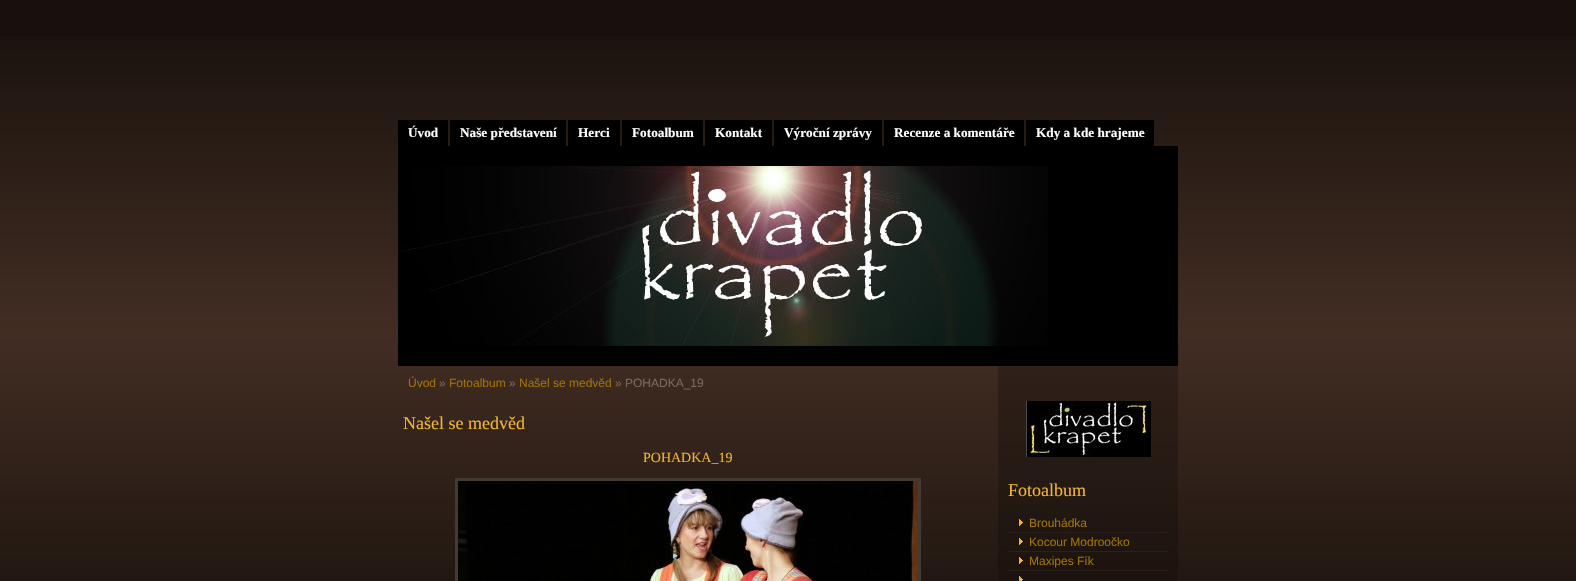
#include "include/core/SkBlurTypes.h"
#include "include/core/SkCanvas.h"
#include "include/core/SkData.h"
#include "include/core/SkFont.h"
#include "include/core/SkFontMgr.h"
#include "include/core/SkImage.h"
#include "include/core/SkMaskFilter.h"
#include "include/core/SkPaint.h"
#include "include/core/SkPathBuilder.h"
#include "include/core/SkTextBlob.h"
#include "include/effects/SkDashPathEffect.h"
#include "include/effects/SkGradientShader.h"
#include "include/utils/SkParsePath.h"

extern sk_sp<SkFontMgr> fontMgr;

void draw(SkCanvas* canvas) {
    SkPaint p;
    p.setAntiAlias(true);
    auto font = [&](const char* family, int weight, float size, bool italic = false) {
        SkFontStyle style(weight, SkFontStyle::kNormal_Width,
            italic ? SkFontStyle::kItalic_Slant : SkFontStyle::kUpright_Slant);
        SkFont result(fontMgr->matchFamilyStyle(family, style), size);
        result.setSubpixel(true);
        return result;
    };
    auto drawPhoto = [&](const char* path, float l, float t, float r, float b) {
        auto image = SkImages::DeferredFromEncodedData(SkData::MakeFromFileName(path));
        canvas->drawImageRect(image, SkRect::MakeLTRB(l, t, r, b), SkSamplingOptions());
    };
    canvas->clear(0xFF17100C);
    drawPhoto("media/1.png", 0, 36, 1576, 581);
    p.setColor(0xFF000000);
    canvas->drawRect(SkRect::MakeLTRB(398, 120, 448, 146), p);
    auto font1 = font("Liberation Serif", 700, 13.25f);
    p.setColor(0xFFFFFFFF);
    canvas->drawString("Úvod", 408, 137, font1, p);
    p.setColor(0xFF000000);
    canvas->drawRect(SkRect::MakeLTRB(450, 120, 566, 146), p);
    p.setColor(0xFFFFFFFF);
    canvas->drawString("Naše představení", 460, 137, font1, p);
    p.setColor(0xFF000000);
    canvas->drawRect(SkRect::MakeLTRB(568, 120, 620, 146), p);
    p.setColor(0xFFFFFFFF);
    canvas->drawString("Herci", 578, 137, font1, p);
    p.setColor(0xFF000000);
    canvas->drawRect(SkRect::MakeLTRB(622, 120, 703, 146), p);
    p.setColor(0xFFFFFFFF);
    canvas->drawString("Fotoalbum", 632, 137, font1, p);
    p.setColor(0xFF000000);
    canvas->drawRect(SkRect::MakeLTRB(705, 120, 772, 146), p);
    p.setColor(0xFFFFFFFF);
    canvas->drawString("Kontakt", 715, 137, font1, p);
    p.setColor(0xFF000000);
    canvas->drawRect(SkRect::MakeLTRB(774, 120, 882, 146), p);
    p.setColor(0xFFFFFFFF);
    canvas->drawString("Výroční zprávy", 784, 137, font1, p);
    p.setColor(0xFF000000);
    canvas->drawRect(SkRect::MakeLTRB(884, 120, 1024, 146), p);
    p.setColor(0xFFFFFFFF);
    canvas->drawString("Recenze a komentáře", 894, 137, font1, p);
    p.setColor(0xFF000000);
    canvas->drawRect(SkRect::MakeLTRB(1026, 120, 1154, 146), p);
    p.setColor(0xFFFFFFFF);
    canvas->drawString("Kdy a kde hrajeme", 1036, 137, font1, p);
    p.setColor(0xFF000000);
    canvas->drawRect(SkRect::MakeLTRB(398, 146, 1178, 366), p);
    drawPhoto("media/2.png", 398, 166, 1048, 346);
    auto font2 = font("Liberation Sans", 400, 12);
    p.setColor(0xFFA07207);
    canvas->drawString("Úvod", 408, 387, font2, p);
    p.setColor(0xFF7F675C);
    canvas->drawString("»", 439, 387, font2, p);
    p.setColor(0xFFA07207);
    canvas->drawString("Fotoalbum", 449, 387, font2, p);
    p.setColor(0xFF7F675C);
    canvas->drawString("»", 509, 387, font2, p);
    p.setColor(0xFFA07207);
    canvas->drawString("Našel se medvěd", 519, 387, font2, p);
    p.setColor(0xFF7F675C);
    canvas->drawString("» POHADKA_19", 615, 387, font2, p);
    auto font3 = font("Liberation Serif", 400, 18);
    p.setColor(0xFFF3B533);
    canvas->drawString("Našel se medvěd", 403, 429, font3, p);
    auto font4 = font("Liberation Serif", 400, 14);
    canvas->drawString("POHADKA_19", 643, 462, font4, p);
    p.setStyle(SkPaint::kStroke_Style);
    p.setStrokeWidth(3);
    p.setColor(0xFF433A33);
    canvas->drawRect(SkRect::MakeLTRB(456.5f, 479.5f, 919.5f, 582.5f), p);
    drawPhoto("media/3.png", 458, 481, 918, 581);
    drawPhoto("media/4.png", 998, 366, 1178, 581);
    drawPhoto("media/5.png", 1026, 401, 1151, 457);
    p.setStyle(SkPaint::kFill_Style);
    p.setColor(0xFFF3B533);
    canvas->drawString("Fotoalbum", 1008, 496, font3, p);
    drawPhoto("media/6.png", 1019, 519, 1023, 526);
    p.setColor(0xFF2C201A);
    canvas->drawRect(SkRect::MakeLTRB(1009, 532, 1167, 533), p);
    p.setColor(0xFFA07207);
    canvas->drawString("Brouhádka", 1029, 527, font2, p);
    drawPhoto("media/7.png", 1019, 538, 1023, 545);
    p.setColor(0xFF2C201A);
    canvas->drawRect(SkRect::MakeLTRB(1009, 551, 1167, 552), p);
    p.setColor(0xFFA07207);
    canvas->drawString("Kocour Modroočko", 1029, 546, font2, p);
    drawPhoto("media/8.png", 1019, 557, 1023, 564);
    p.setColor(0xFF2C201A);
    canvas->drawRect(SkRect::MakeLTRB(1009, 570, 1167, 571), p);
    p.setColor(0xFFA07207);
    canvas->drawString("Maxipes Fík", 1029, 565, font2, p);
    drawPhoto("media/9.png", 1019, 576, 1023, 581);
}
